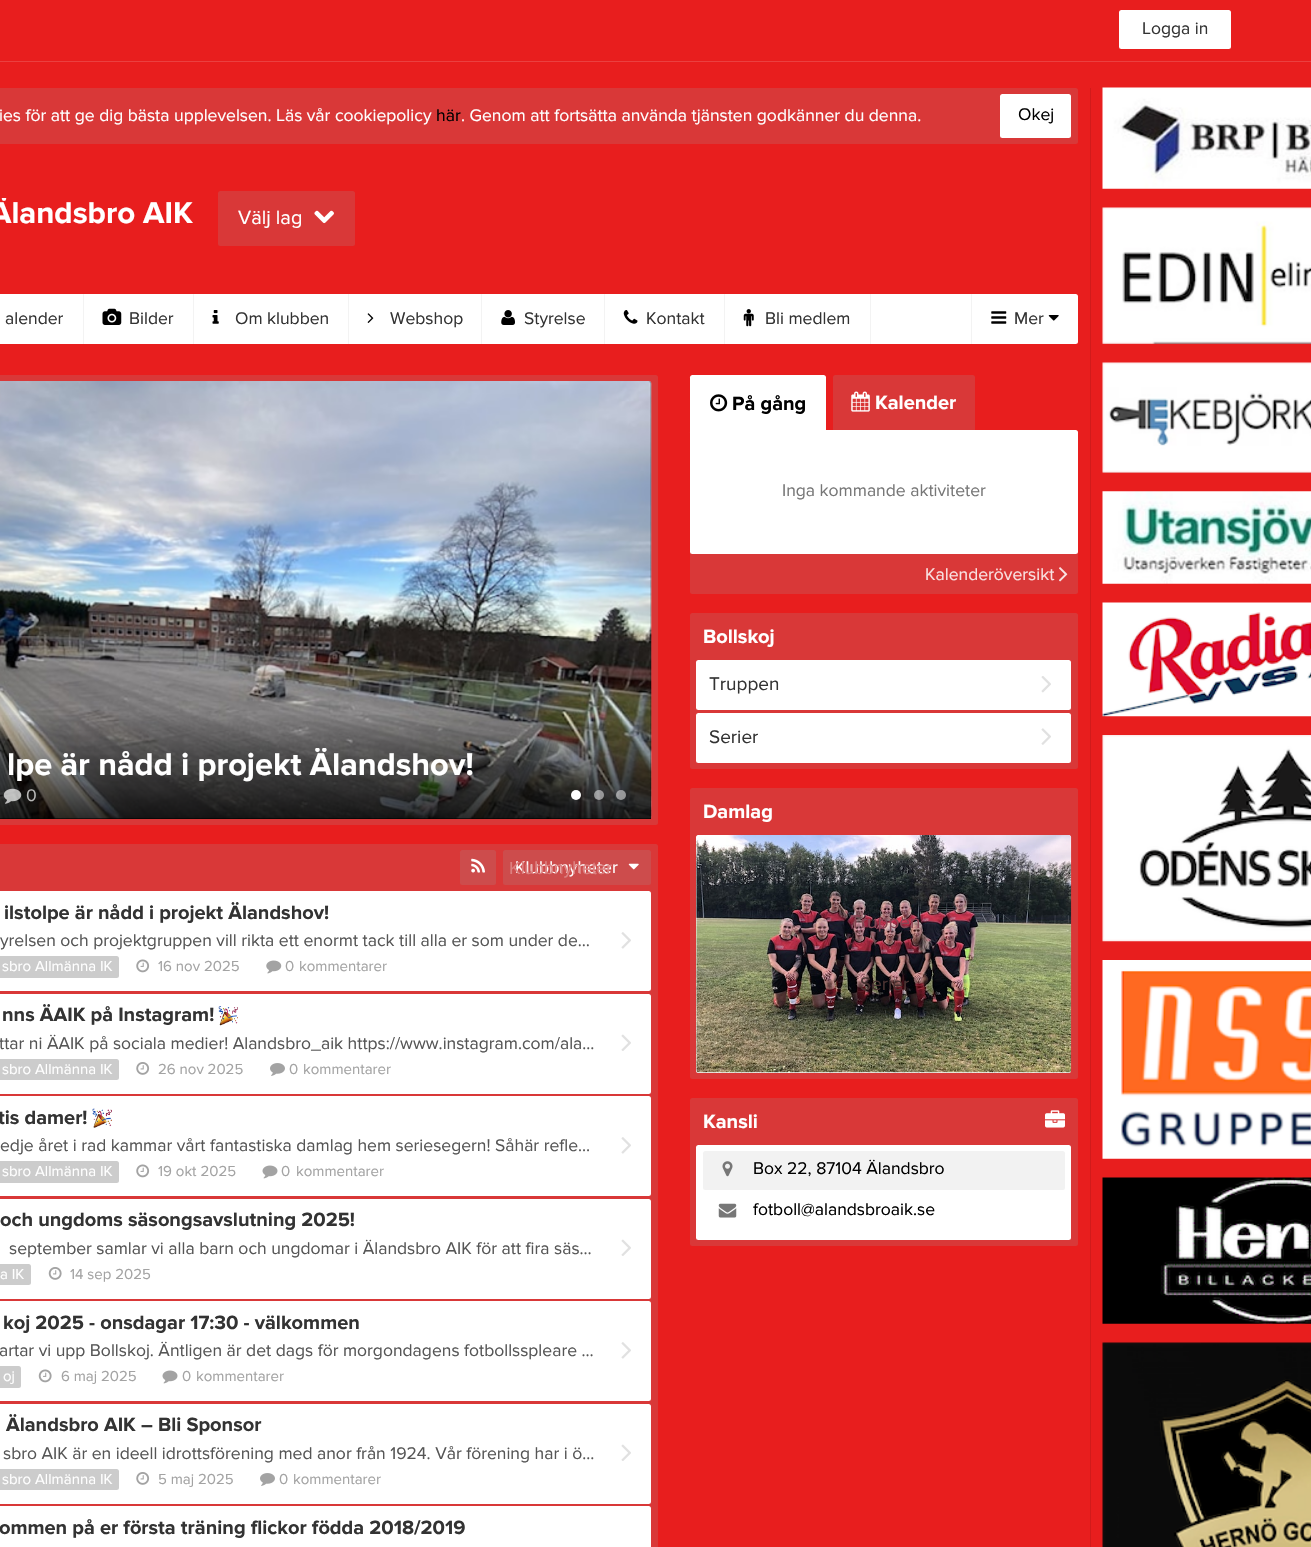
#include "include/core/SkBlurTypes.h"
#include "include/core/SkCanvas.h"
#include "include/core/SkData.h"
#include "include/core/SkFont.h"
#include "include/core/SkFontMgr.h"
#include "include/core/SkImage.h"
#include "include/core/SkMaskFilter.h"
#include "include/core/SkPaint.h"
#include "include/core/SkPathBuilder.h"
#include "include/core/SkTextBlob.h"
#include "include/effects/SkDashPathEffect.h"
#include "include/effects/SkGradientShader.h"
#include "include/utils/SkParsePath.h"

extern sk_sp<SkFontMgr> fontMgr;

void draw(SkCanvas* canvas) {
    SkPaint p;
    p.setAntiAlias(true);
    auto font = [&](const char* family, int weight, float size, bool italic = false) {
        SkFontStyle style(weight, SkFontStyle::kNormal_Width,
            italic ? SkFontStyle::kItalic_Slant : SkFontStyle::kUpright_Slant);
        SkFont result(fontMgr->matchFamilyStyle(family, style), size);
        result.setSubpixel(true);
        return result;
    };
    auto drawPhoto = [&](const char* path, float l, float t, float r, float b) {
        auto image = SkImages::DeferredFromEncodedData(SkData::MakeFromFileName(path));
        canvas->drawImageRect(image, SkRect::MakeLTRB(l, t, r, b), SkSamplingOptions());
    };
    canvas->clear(0xFFE81E1E);
    p.setColor(0xFFEB4040);
    canvas->drawRect(SkRect::MakeLTRB(0, 61, 1311, 62), p);
    p.setColor(0xFFFFFFFF);
    canvas->drawRoundRect(SkRect::MakeLTRB(1119, 10, 1231, 49), 2.5f, 2.5f, p);
    auto font1 = font("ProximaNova", 400, 17.5f);
    p.setColor(0xFF333333);
    canvas->drawString("Logga in", 1142, 34, font1, p);
    p.setColor(0xFFD93838);
    canvas->drawRoundRect(SkRect::MakeLTRB(-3, 88, 1078, 144), 2.5f, 2.5f, p);
    p.setColor(0xFFFFFFFF);
    canvas->drawString("ies för att ge dig bästa upplevelsen. Läs vår cookiepolicy", -1, 121, font1, p);
    p.setColor(0xFF000000);
    canvas->drawString("här", 436, 121, font1, p);
    p.setColor(0xFFFFFFFF);
    canvas->drawString(". Genom att fortsätta använda tjänsten godkänner du denna.", 461, 121, font1, p);
    canvas->drawRoundRect(SkRect::MakeLTRB(1000, 94, 1071, 138), 2.5f, 2.5f, p);
    p.setColor(0xFF000000);
    canvas->drawString("Okej", 1018, 120, font1, p);
    canvas->save();
    canvas->clipRect(SkRect::MakeLTRB(0, 198, 193, 235));
    auto font2 = font("ProximaNova", 700, 31.25f);
    p.setColor(0xFFFFFFFF);
    canvas->drawString("Älandsbro AIK", -10, 223, font2, p);
    canvas->restore();
    p.setColor(0xFFD93838);
    canvas->drawRoundRect(SkRect::MakeLTRB(218, 191, 355, 246), 2.5f, 2.5f, p);
    auto font3 = font("ProximaNova", 400, 20);
    p.setColor(0xFFFFFFFF);
    canvas->drawString("Välj lag", 238, 224, font3, p);
    drawPhoto("media/1.png", 314, 210, 334, 224);
    canvas->drawRoundRect(SkRect::MakeLTRB(-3, 294, 1078, 344), 2.5f, 2.5f, p);
    p.setColor(0xFFF3F3F3);
    canvas->drawRect(SkRect::MakeLTRB(83, 294, 84, 344), p);
    p.setColor(0xFF333333);
    canvas->drawString("alender", 5, 324, font1, p);
    p.setColor(0xFFF3F3F3);
    canvas->drawRect(SkRect::MakeLTRB(193, 294, 194, 344), p);
    drawPhoto("media/2.png", 102, 308, 122, 325);
    p.setColor(0xFF333333);
    canvas->drawString("Bilder", 129, 324, font1, p);
    p.setColor(0xFFF3F3F3);
    canvas->drawRect(SkRect::MakeLTRB(348, 294, 349, 344), p);
    drawPhoto("media/3.png", 212, 310, 219, 324);
    p.setColor(0xFF333333);
    canvas->drawString("Om klubben", 235, 324, font1, p);
    p.setColor(0xFFF3F3F3);
    canvas->drawRect(SkRect::MakeLTRB(481, 294, 482, 344), p);
    drawPhoto("media/4.png", 367, 313, 374, 323);
    p.setColor(0xFF333333);
    canvas->drawString("Webshop", 390, 324, font1, p);
    p.setColor(0xFFF3F3F3);
    canvas->drawRect(SkRect::MakeLTRB(604, 294, 605, 344), p);
    drawPhoto("media/5.png", 501, 310, 515, 325);
    p.setColor(0xFF333333);
    canvas->drawString("Styrelse", 524, 324, font1, p);
    p.setColor(0xFFF3F3F3);
    canvas->drawRect(SkRect::MakeLTRB(724, 294, 725, 344), p);
    drawPhoto("media/6.png", 623, 310, 638, 324);
    p.setColor(0xFF333333);
    canvas->drawString("Kontakt", 646, 324, font1, p);
    p.setColor(0xFFF3F3F3);
    canvas->drawRect(SkRect::MakeLTRB(870, 294, 871, 344), p);
    drawPhoto("media/7.png", 743, 309, 754, 327);
    p.setColor(0xFF333333);
    canvas->drawString("Bli medlem", 765, 324, font1, p);
    p.setColor(0xFFF3F3F3);
    canvas->drawRect(SkRect::MakeLTRB(971, 294, 972, 344), p);
    drawPhoto("media/8.png", 991, 311, 1007, 324);
    p.setColor(0xFF333333);
    canvas->drawString("Mer", 1014, 324, font1, p);
    drawPhoto("media/9.png", 1048, 315, 1059, 321);
    p.setColor(0xFFD93838);
    canvas->drawRoundRect(SkRect::MakeLTRB(-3, 375, 658, 825), 2.5f, 2.5f, p);
    p.setColor(0xFF000000);
    canvas->drawPath(SkPathBuilder().moveTo(-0.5f, 381).lineTo(648.5f, 381).cubicTo(650, 381, 651, 382, 651, 383.5f).lineTo(651, 819).lineTo(-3, 819).lineTo(-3, 383.5f).cubicTo(-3, 382, -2, 381, -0.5f, 381).close().detach(), p);
    drawPhoto("media/10.png", 0, 385, 652, 819);
    drawPhoto("media/11.png", 0, 381, 652, 819);
    {
        const SkColor colors[] = {0x00000000, 0xCC000000};
        const float stops[] = {0.2f, 1};
        const SkPoint ends[] = {{255, 685}, {255, 819}};
        p.setShader(SkGradientShader::MakeLinear(ends, colors, stops, 2, SkTileMode::kClamp));
        p.setAlpha(255);
    }
    canvas->drawRect(SkRect::MakeLTRB(0, 715, 651, 819), p);
    canvas->save();
    canvas->clipRect(SkRect::MakeLTRB(0, 748, 639, 786));
    auto font4 = font("ProximaNova", 700, 32.5f);
    p.setShader(nullptr);
    p.setColor(0xFFFFFFFF);
    canvas->drawString("lpe är nådd i projekt Älandshov!", 7, 775, font4, p);
    canvas->restore();
    drawPhoto("media/12.png", 3, 788, 22, 804);
    p.setColor(0xFFB9B9B8);
    canvas->drawString("0", 26, 801, font1, p);
    p.setColor(0xFFFFFFFF);
    canvas->drawCircle(576, 795, 5, p);
    p.setColor(0x80FFFFFF);
    canvas->drawCircle(599, 795, 5, p);
    canvas->drawCircle(621, 795, 5, p);
    p.setColor(0xFFD93838);
    canvas->drawRoundRect(SkRect::MakeLTRB(-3, 844, 658, 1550), 2.5f, 2.5f, p);
    p.setColor(0xFFCD4C4C);
    canvas->drawRoundRect(SkRect::MakeLTRB(460, 850, 496, 885), 2.5f, 2.5f, p);
    drawPhoto("media/13.png", 471, 858, 485, 873);
    canvas->drawRoundRect(SkRect::MakeLTRB(503, 850, 651, 885), 2.5f, 2.5f, p);
    p.setColor(0xFFFFFFFF);
    canvas->drawString("Klubbnyheter", 515, 873, font1, p);
    auto font5 = font("Liberation Sans", 400, 17.5f);
    p.setColor(0xFFDC8080);
    canvas->drawString("Klubbnyheter", 509, 874, font5, p);
    drawPhoto("media/14.png", 628, 863, 639, 870);
    p.setColor(0xFFFFFFFF);
    canvas->drawRoundRect(SkRect::MakeLTRB(-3, 891, 651, 991), 2.5f, 2.5f, p);
    auto font6 = font("ProximaNova", 700, 20);
    p.setColor(0xFF333333);
    canvas->drawString("ilstolpe är nådd i projekt Älandshov!", 4, 919, font6, p);
    p.setColor(0xFF565656);
    canvas->drawString("yrelsen och projektgruppen vill rikta ett enormt tack till alla er som under de…", 0, 946, font1, p);
    drawPhoto("media/15.png", 621, 932, 631, 949);
    p.setColor(0xFFCCCCCC);
    canvas->drawRoundRect(SkRect::MakeLTRB(-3, 956, 119, 978), 2.5f, 2.5f, p);
    auto font7 = font("ProximaNova", 400, 15);
    p.setColor(0xFFFFFFFF);
    canvas->drawString("sbro Allmänna IK", 2, 971, font7, p);
    drawPhoto("media/16.png", 136, 959, 150, 973);
    p.setColor(0xFFA3A3A3);
    canvas->drawString("16 nov 2025", 158, 971, font7, p);
    drawPhoto("media/17.png", 266, 960, 282, 974);
    canvas->drawString("0", 285, 971, font7, p);
    canvas->drawString("kommentarer", 299, 971, font7, p);
    p.setColor(0xFFFFFFFF);
    canvas->drawRoundRect(SkRect::MakeLTRB(-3, 994, 651, 1094), 2.5f, 2.5f, p);
    p.setColor(0xFF333333);
    canvas->drawString("nns ÄAIK på Instagram!", 2, 1021, font6, p);
    drawPhoto("media/18.png", 218, 1006, 238, 1026);
    p.setColor(0xFF565656);
    canvas->drawString("ttar ni ÄAIK på sociala medier! Alandsbro_aik https://www.instagram.com/ala…", -1, 1049, font1, p);
    drawPhoto("media/19.png", 621, 1034, 631, 1051);
    p.setColor(0xFFCCCCCC);
    canvas->drawRoundRect(SkRect::MakeLTRB(-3, 1059, 119, 1080), 2.5f, 2.5f, p);
    p.setColor(0xFFFFFFFF);
    canvas->drawString("sbro Allmänna IK", 2, 1074, font7, p);
    drawPhoto("media/20.png", 136, 1062, 150, 1075);
    p.setColor(0xFFA3A3A3);
    canvas->drawString("26 nov 2025", 158, 1074, font7, p);
    drawPhoto("media/21.png", 270, 1063, 285, 1076);
    canvas->drawString("0", 289, 1074, font7, p);
    canvas->drawString("kommentarer", 303, 1074, font7, p);
    p.setColor(0xFFFFFFFF);
    canvas->drawRoundRect(SkRect::MakeLTRB(-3, 1096, 651, 1196), 2.5f, 2.5f, p);
    p.setColor(0xFF333333);
    canvas->drawString("tis damer!", -2, 1124, font6, p);
    drawPhoto("media/22.png", 92, 1108, 112, 1128);
    p.setColor(0xFF565656);
    canvas->drawString("edje året i rad kammar vårt fantastiska damlag hem seriesegern! Såhär refle…", 0, 1151, font1, p);
    drawPhoto("media/15.png", 621, 1137, 631, 1154);
    p.setColor(0xFFCCCCCC);
    canvas->drawRoundRect(SkRect::MakeLTRB(-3, 1161, 119, 1183), 2.5f, 2.5f, p);
    p.setColor(0xFFFFFFFF);
    canvas->drawString("sbro Allmänna IK", 2, 1176, font7, p);
    drawPhoto("media/16.png", 136, 1164, 150, 1178);
    p.setColor(0xFFA3A3A3);
    canvas->drawString("19 okt 2025", 158, 1176, font7, p);
    drawPhoto("media/23.png", 262, 1165, 278, 1179);
    canvas->drawString("0", 281, 1176, font7, p);
    canvas->drawString("kommentarer", 296, 1176, font7, p);
    p.setColor(0xFFFFFFFF);
    canvas->drawRoundRect(SkRect::MakeLTRB(-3, 1199, 651, 1299), 2.5f, 2.5f, p);
    p.setColor(0xFF333333);
    canvas->drawString("och ungdoms säsongsavslutning 2025!", 0, 1226, font6, p);
    p.setColor(0xFF565656);
    canvas->drawString("september samlar vi alla barn och ungdomar i Älandsbro AIK för att fira säs…", 9, 1254, font1, p);
    drawPhoto("media/19.png", 621, 1239, 631, 1256);
    p.setColor(0xFFCCCCCC);
    canvas->drawRoundRect(SkRect::MakeLTRB(-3, 1264, 31, 1285), 2.5f, 2.5f, p);
    p.setColor(0xFFFFFFFF);
    canvas->drawString("a IK", 0, 1279, font7, p);
    drawPhoto("media/24.png", 48, 1267, 62, 1280);
    p.setColor(0xFFA3A3A3);
    canvas->drawString("14 sep 2025", 70, 1279, font7, p);
    p.setColor(0xFFFFFFFF);
    canvas->drawRoundRect(SkRect::MakeLTRB(-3, 1301, 651, 1401), 2.5f, 2.5f, p);
    p.setColor(0xFF333333);
    canvas->drawString("koj 2025 - onsdagar 17:30 - välkommen", 3, 1329, font6, p);
    p.setColor(0xFF565656);
    canvas->drawString("artar vi upp Bollskoj. Äntligen är det dags för morgondagens fotbollsspleare …", -1, 1356, font1, p);
    drawPhoto("media/15.png", 621, 1342, 631, 1359);
    p.setColor(0xFFCCCCCC);
    canvas->drawRoundRect(SkRect::MakeLTRB(-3, 1366, 21, 1388), 2.5f, 2.5f, p);
    p.setColor(0xFFFFFFFF);
    canvas->drawString("oj", 3, 1381, font7, p);
    drawPhoto("media/25.png", 38, 1369, 52, 1383);
    p.setColor(0xFFA3A3A3);
    canvas->drawString("6 maj 2025", 61, 1381, font7, p);
    drawPhoto("media/23.png", 162, 1370, 178, 1384);
    canvas->drawString("0", 182, 1381, font7, p);
    canvas->drawString("kommentarer", 196, 1381, font7, p);
    p.setColor(0xFFFFFFFF);
    canvas->drawRoundRect(SkRect::MakeLTRB(-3, 1404, 651, 1504), 2.5f, 2.5f, p);
    p.setColor(0xFF333333);
    canvas->drawString("Älandsbro AIK – Bli Sponsor", 6, 1431, font6, p);
    p.setColor(0xFF565656);
    canvas->drawString("sbro AIK är en ideell idrottsförening med anor från 1924. Vår förening har i ö…", 3, 1459, font1, p);
    drawPhoto("media/19.png", 621, 1444, 631, 1461);
    p.setColor(0xFFCCCCCC);
    canvas->drawRoundRect(SkRect::MakeLTRB(-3, 1469, 119, 1490), 2.5f, 2.5f, p);
    p.setColor(0xFFFFFFFF);
    canvas->drawString("sbro Allmänna IK", 2, 1484, font7, p);
    drawPhoto("media/20.png", 136, 1472, 150, 1485);
    p.setColor(0xFFA3A3A3);
    canvas->drawString("5 maj 2025", 158, 1484, font7, p);
    drawPhoto("media/21.png", 260, 1473, 275, 1486);
    canvas->drawString("0", 279, 1484, font7, p);
    canvas->drawString("kommentarer", 293, 1484, font7, p);
    p.setColor(0xFFFFFFFF);
    canvas->drawRoundRect(SkRect::MakeLTRB(-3, 1506, 651, 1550), 2.5f, 2.5f, p);
    p.setColor(0xFF333333);
    canvas->drawString("ommen på er första träning flickor födda 2018/2019", -1, 1534, font6, p);
    p.setColor(0xFFFFFFFF);
    canvas->drawPath(SkPathBuilder().moveTo(692.5f, 375).lineTo(823.5f, 375).cubicTo(825, 375, 826, 376, 826, 377.5f).lineTo(826, 430).lineTo(690, 430).lineTo(690, 377.5f).cubicTo(690, 376, 691, 375, 692.5f, 375).close().detach(), p);
    drawPhoto("media/26.png", 710, 394, 728, 412);
    p.setColor(0xFF000000);
    canvas->drawString("På gång", 732, 410, font6, p);
    p.setColor(0xFFD93838);
    canvas->drawRoundRect(SkRect::MakeLTRB(690, 430, 1078, 594), 2.5f, 2.5f, p);
    p.setColor(0xFFFFFFFF);
    canvas->drawRoundRect(SkRect::MakeLTRB(690, 430, 1078, 554), 2.5f, 2.5f, p);
    canvas->drawRect(SkRect::MakeLTRB(690, 430, 693, 433), p);
    p.setColor(0xFFD93838);
    canvas->drawPath(SkPathBuilder().moveTo(835.5f, 375).lineTo(972.5f, 375).cubicTo(974, 375, 975, 376, 975, 377.5f).lineTo(975, 430).lineTo(833, 430).lineTo(833, 377.5f).cubicTo(833, 376, 834, 375, 835.5f, 375).close().detach(), p);
    drawPhoto("media/27.png", 851, 391, 870, 412);
    p.setColor(0xFFFFFFFF);
    canvas->drawString("Kalender", 875, 409, font6, p);
    p.setColor(0xFF777777);
    canvas->drawString("Inga kommande aktiviteter", 782, 496, font1, p);
    p.setColor(0xFFF9E1E1);
    canvas->drawString("Kalenderöversikt", 925, 580, font1, p);
    drawPhoto("media/28.png", 1059, 567, 1068, 582);
    p.setColor(0xFFD93838);
    canvas->drawRoundRect(SkRect::MakeLTRB(690, 613, 1078, 769), 2.5f, 2.5f, p);
    p.setColor(0xFFFFFFFF);
    canvas->drawString("Bollskoj", 703, 643, font6, p);
    canvas->drawRoundRect(SkRect::MakeLTRB(696, 660, 1071, 710), 2.5f, 2.5f, p);
    auto font8 = font("ProximaNova", 400, 19);
    p.setColor(0xFF333333);
    canvas->drawString("Truppen", 709, 690, font8, p);
    drawPhoto("media/29.png", 1041, 676, 1051, 693);
    p.setColor(0xFFFFFFFF);
    canvas->drawRoundRect(SkRect::MakeLTRB(696, 713, 1071, 763), 2.5f, 2.5f, p);
    p.setColor(0xFF333333);
    canvas->drawString("Serier", 709, 743, font8, p);
    drawPhoto("media/30.png", 1041, 728, 1051, 745);
    p.setColor(0xFFD93838);
    canvas->drawRoundRect(SkRect::MakeLTRB(690, 788, 1078, 1079), 2.5f, 2.5f, p);
    p.setColor(0xFFFFFFFF);
    canvas->drawString("Damlag", 703, 818, font6, p);
    canvas->drawRoundRect(SkRect::MakeLTRB(696, 835, 1071, 1073), 2.5f, 2.5f, p);
    drawPhoto("media/31.png", 696, 835, 1072, 1073);
    p.setColor(0xFF874755);
    canvas->drawString("Truppen", 850, 928, font8, p);
    p.setColor(0xFF493231);
    canvas->drawString("Serier", 860, 990, font8, p);
    p.setColor(0xFFD93838);
    canvas->drawRoundRect(SkRect::MakeLTRB(690, 1098, 1078, 1246), 2.5f, 2.5f, p);
    p.setColor(0xFFFFFFFF);
    canvas->drawString("Kansli", 703, 1128, font6, p);
    drawPhoto("media/32.png", 1045, 1110, 1065, 1128);
    canvas->drawRoundRect(SkRect::MakeLTRB(696, 1145, 1071, 1240), 2.5f, 2.5f, p);
    p.setColor(0xFFF2F2F2);
    canvas->drawRoundRect(SkRect::MakeLTRB(703, 1151, 1065, 1190), 2.5f, 2.5f, p);
    drawPhoto("media/33.png", 722, 1161, 733, 1177);
    p.setColor(0xFF000000);
    canvas->drawString("Box 22, 87104 Älandsbro", 753, 1174, font1, p);
    drawPhoto("media/34.png", 718, 1203, 737, 1218);
    canvas->drawString("fotboll@alandsbroaik.se", 753, 1215, font1, p);
    p.setColor(0xFFD11B1B);
    canvas->drawRect(SkRect::MakeLTRB(1090, 88, 1091, 1547), p);
    drawPhoto("media/35.png", 1102, 87, 1311, 189);
    p.setColor(0xFFD93838);
    canvas->drawRect(SkRect::MakeLTRB(1103, 208, 1311, 344), p);
    drawPhoto("media/36.png", 1102, 207, 1311, 344);
    canvas->drawRect(SkRect::MakeLTRB(1103, 363, 1311, 473), p);
    drawPhoto("media/37.png", 1102, 362, 1311, 473);
    drawPhoto("media/38.png", 1102, 491, 1311, 584);
    drawPhoto("media/39.png", 1102, 602, 1311, 717);
    drawPhoto("media/40.png", 1102, 735, 1311, 942);
    drawPhoto("media/41.png", 1102, 960, 1311, 1159);
    drawPhoto("media/42.png", 1102, 1177, 1311, 1324);
    drawPhoto("media/43.png", 1102, 1342, 1311, 1547);
}
